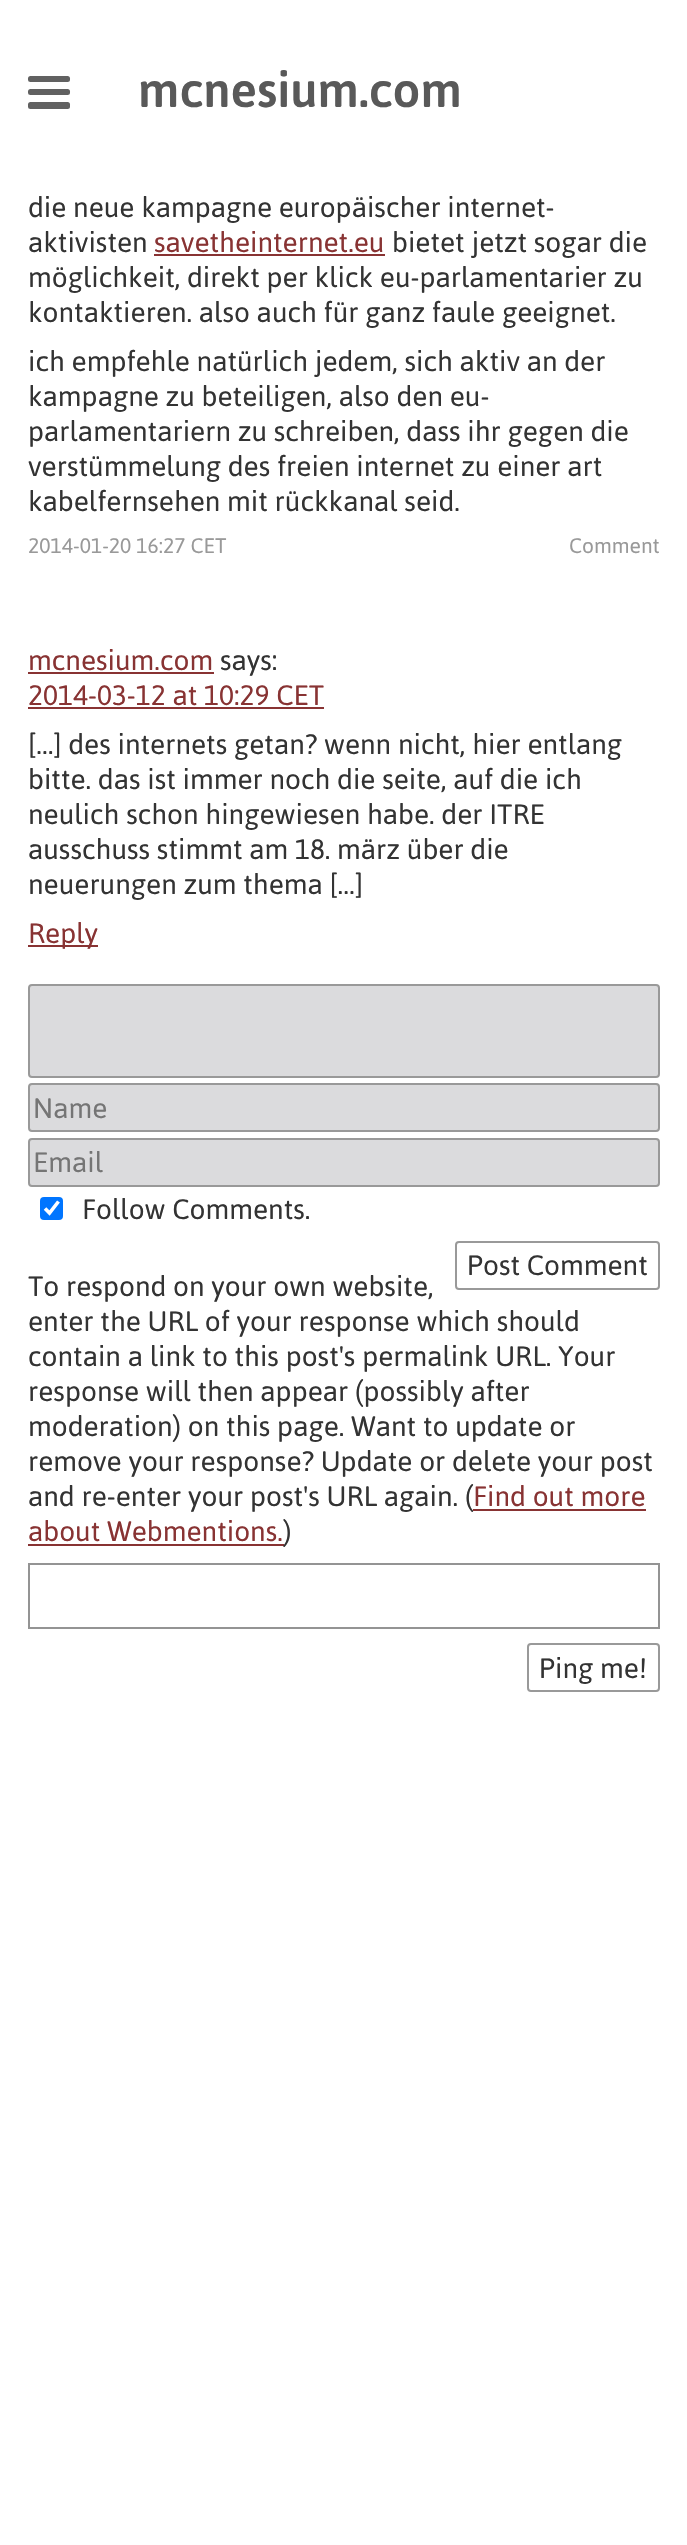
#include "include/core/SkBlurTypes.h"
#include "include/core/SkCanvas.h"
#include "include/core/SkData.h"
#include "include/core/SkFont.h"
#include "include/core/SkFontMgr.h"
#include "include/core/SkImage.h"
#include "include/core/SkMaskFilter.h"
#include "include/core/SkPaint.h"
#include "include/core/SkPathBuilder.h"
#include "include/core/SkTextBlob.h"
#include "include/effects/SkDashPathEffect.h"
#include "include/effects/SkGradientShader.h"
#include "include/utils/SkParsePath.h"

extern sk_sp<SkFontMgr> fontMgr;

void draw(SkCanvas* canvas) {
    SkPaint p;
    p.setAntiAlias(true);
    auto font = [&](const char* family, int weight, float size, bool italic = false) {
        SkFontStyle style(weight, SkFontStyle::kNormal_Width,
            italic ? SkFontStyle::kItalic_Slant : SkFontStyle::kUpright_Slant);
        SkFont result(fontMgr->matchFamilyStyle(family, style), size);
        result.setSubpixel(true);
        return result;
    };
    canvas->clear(0xFFFFFFFF);
    p.setColor(0xFF616161);
    canvas->drawRoundRect(SkRect::MakeLTRB(28, 76, 70, 82), 2.5f, 2.5f, p);
    canvas->drawRoundRect(SkRect::MakeLTRB(28, 89, 70, 95), 2.5f, 2.5f, p);
    canvas->drawRoundRect(SkRect::MakeLTRB(28, 102, 70, 109), 2.5f, 2.5f, p);
    auto font1 = font("Asap", 500, 49);
    p.setColor(0xFF595959);
    canvas->drawString("mcnesium.com", 138, 107, font1, p);
    auto font2 = font("Asap", 400, 28);
    p.setColor(0xFF333333);
    canvas->drawString("die neue kampagne europäischer internet-", 28, 217, font2, p);
    canvas->drawString("aktivisten", 28, 252, font2, p);
    p.setColor(0xFF883333);
    canvas->drawString("savetheinternet.eu", 154, 252, font2, p);
    canvas->drawRect(SkRect::MakeLTRB(154, 254, 385, 256), p);
    p.setColor(0xFF333333);
    {
        const struct { const char* s; float x, y; } items[] = {
            {"bietet jetzt sogar die", 392, 252},
            {"möglichkeit, direkt per klick eu-parlamentarier zu", 28, 287},
            {"kontaktieren. also auch für ganz faule geeignet.", 28, 322},
            {"ich empfehle natürlich jedem, sich aktiv an der", 28, 371},
            {"kampagne zu beteiligen, also den eu-", 28, 406},
            {"parlamentariern zu schreiben, dass ihr gegen die", 28, 441},
            {"verstümmelung des freien internet zu einer art", 28, 476},
            {"kabelfernsehen mit rückkanal seid.", 28, 511},
        };
        for (auto [s, x, y] : items) {
            canvas->drawString(s, x, y, font2, p);
        }
    }
    auto font3 = font("Asap", 400, 21);
    p.setColor(0xFF999999);
    canvas->drawString("2014-01-20 16:27 CET", 28, 553, font3, p);
    canvas->drawString("Comment", 569, 553, font3, p);
    p.setColor(0xFF883333);
    canvas->drawString("mcnesium.com", 28, 670, font2, p);
    canvas->drawRect(SkRect::MakeLTRB(28, 672, 214, 674), p);
    p.setColor(0xFF333333);
    canvas->drawString("says:", 220, 670, font2, p);
    p.setColor(0xFF883333);
    canvas->drawString("2014-03-12 at 10:29 CET", 28, 705, font2, p);
    canvas->drawRect(SkRect::MakeLTRB(28, 707, 324, 709), p);
    p.setColor(0xFF333333);
    {
        const struct { const char* s; float x, y; } items[] = {
            {"[…] des internets getan? wenn nicht, hier entlang", 28, 754},
            {"bitte. das ist immer noch die seite, auf die ich", 28, 789},
            {"neulich schon hingewiesen habe. der ITRE", 28, 824},
            {"ausschuss stimmt am 18. märz über die", 28, 859},
            {"neuerungen zum thema […]", 28, 894},
        };
        for (auto [s, x, y] : items) {
            canvas->drawString(s, x, y, font2, p);
        }
    }
    p.setColor(0xFF883333);
    canvas->drawRect(SkRect::MakeLTRB(28, 945, 98, 947), p);
    canvas->drawString("Reply", 28, 943, font2, p);
    p.setColor(0xFFDBDBDD);
    canvas->drawRoundRect(SkRect::MakeLTRB(29, 985, 659, 1077), 3, 3, p);
    p.setStyle(SkPaint::kStroke_Style);
    p.setStrokeWidth(2);
    p.setColor(0xFF999999);
    canvas->drawRoundRect(SkRect::MakeLTRB(29, 985, 659, 1077), 3, 3, p);
    p.setStyle(SkPaint::kFill_Style);
    p.setColor(0xFFDBDBDD);
    canvas->drawRoundRect(SkRect::MakeLTRB(29, 1084, 659, 1131), 3, 3, p);
    p.setStyle(SkPaint::kStroke_Style);
    p.setColor(0xFF999999);
    canvas->drawRoundRect(SkRect::MakeLTRB(29, 1084, 659, 1131), 3, 3, p);
    p.setStyle(SkPaint::kFill_Style);
    p.setColor(0xFF757575);
    canvas->drawString("Name", 33, 1118, font2, p);
    p.setColor(0xFFDBDBDD);
    canvas->drawRoundRect(SkRect::MakeLTRB(29, 1139, 659, 1186), 3, 3, p);
    p.setStyle(SkPaint::kStroke_Style);
    p.setColor(0xFF999999);
    canvas->drawRoundRect(SkRect::MakeLTRB(29, 1139, 659, 1186), 3, 3, p);
    p.setStyle(SkPaint::kFill_Style);
    p.setColor(0xFF757575);
    canvas->drawString("Email", 33, 1172, font2, p);
    p.setColor(0xFF0075FF);
    canvas->drawRoundRect(SkRect::MakeLTRB(40, 1197, 63, 1220), 4, 4, p);
    p.setStyle(SkPaint::kStroke_Style);
    p.setStrokeWidth(3.6f);
    p.setColor(0xFFFFFFFF);
    canvas->drawPath(SkPathBuilder().moveTo(45, 1208.5f).lineTo(49.5f, 1213).lineTo(58.5f, 1201.5f).detach(), p);
    p.setStyle(SkPaint::kFill_Style);
    p.setColor(0xFF333333);
    canvas->drawString("Follow Comments.", 82, 1219, font2, p);
    p.setStyle(SkPaint::kStroke_Style);
    p.setStrokeWidth(2);
    p.setColor(0xFF999999);
    canvas->drawRoundRect(SkRect::MakeLTRB(456, 1242, 659, 1289), 3, 3, p);
    p.setStyle(SkPaint::kFill_Style);
    p.setColor(0xFF333333);
    {
        const struct { const char* s; float x, y; } items[] = {
            {"Post Comment", 467, 1275},
            {"To respond on your own website,", 28, 1296},
            {"enter the URL of your response which should", 28, 1331},
            {"contain a link to this post's permalink URL. Your", 28, 1366},
            {"response will then appear (possibly after", 28, 1401},
            {"moderation) on this page. Want to update or", 28, 1436},
            {"remove your response? Update or delete your post", 28, 1471},
            {"and re-enter your post's URL again. (", 28, 1506},
        };
        for (auto [s, x, y] : items) {
            canvas->drawString(s, x, y, font2, p);
        }
    }
    p.setColor(0xFF883333);
    canvas->drawString("Find out more", 473, 1506, font2, p);
    canvas->drawRect(SkRect::MakeLTRB(473, 1509, 646, 1511), p);
    canvas->drawString("about Webmentions.", 28, 1541, font2, p);
    canvas->drawRect(SkRect::MakeLTRB(28, 1544, 284, 1546), p);
    p.setColor(0xFF333333);
    canvas->drawString(")", 283, 1541, font2, p);
    p.setStyle(SkPaint::kStroke_Style);
    p.setColor(0xFF949494);
    canvas->drawRect(SkRect::MakeLTRB(29, 1564, 659, 1628), p);
    p.setColor(0xFF999999);
    canvas->drawRoundRect(SkRect::MakeLTRB(528, 1644, 659, 1691), 3, 3, p);
    p.setStyle(SkPaint::kFill_Style);
    p.setColor(0xFF333333);
    canvas->drawString("Ping me!", 539, 1678, font2, p);
}
